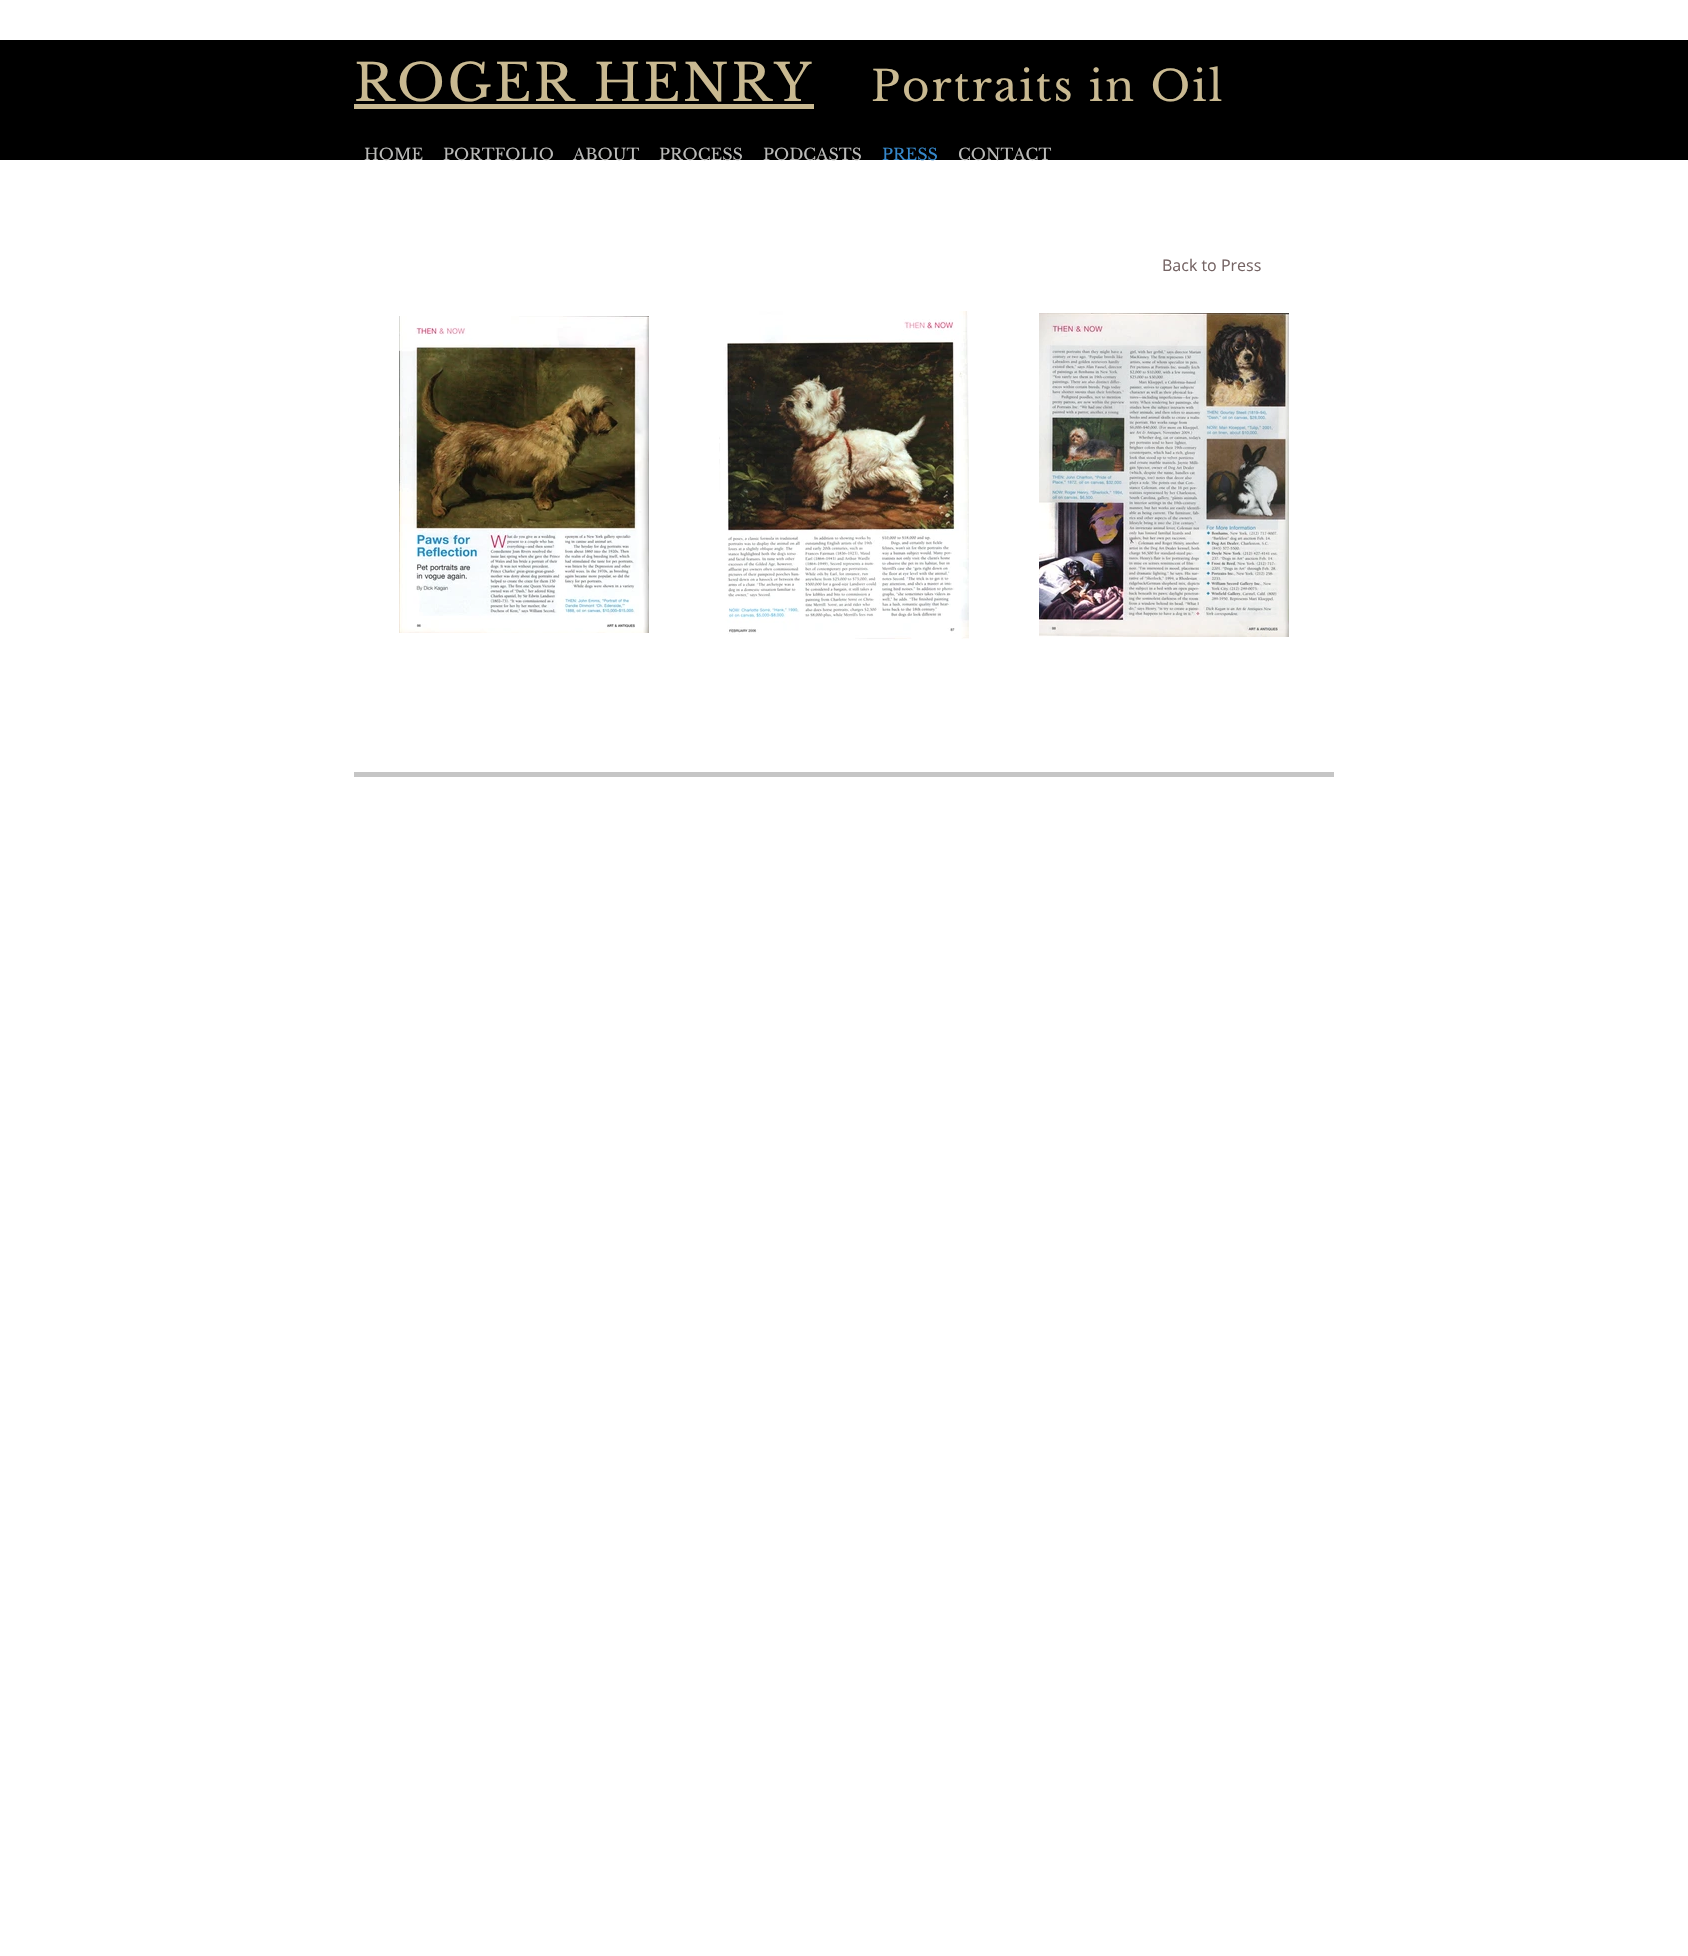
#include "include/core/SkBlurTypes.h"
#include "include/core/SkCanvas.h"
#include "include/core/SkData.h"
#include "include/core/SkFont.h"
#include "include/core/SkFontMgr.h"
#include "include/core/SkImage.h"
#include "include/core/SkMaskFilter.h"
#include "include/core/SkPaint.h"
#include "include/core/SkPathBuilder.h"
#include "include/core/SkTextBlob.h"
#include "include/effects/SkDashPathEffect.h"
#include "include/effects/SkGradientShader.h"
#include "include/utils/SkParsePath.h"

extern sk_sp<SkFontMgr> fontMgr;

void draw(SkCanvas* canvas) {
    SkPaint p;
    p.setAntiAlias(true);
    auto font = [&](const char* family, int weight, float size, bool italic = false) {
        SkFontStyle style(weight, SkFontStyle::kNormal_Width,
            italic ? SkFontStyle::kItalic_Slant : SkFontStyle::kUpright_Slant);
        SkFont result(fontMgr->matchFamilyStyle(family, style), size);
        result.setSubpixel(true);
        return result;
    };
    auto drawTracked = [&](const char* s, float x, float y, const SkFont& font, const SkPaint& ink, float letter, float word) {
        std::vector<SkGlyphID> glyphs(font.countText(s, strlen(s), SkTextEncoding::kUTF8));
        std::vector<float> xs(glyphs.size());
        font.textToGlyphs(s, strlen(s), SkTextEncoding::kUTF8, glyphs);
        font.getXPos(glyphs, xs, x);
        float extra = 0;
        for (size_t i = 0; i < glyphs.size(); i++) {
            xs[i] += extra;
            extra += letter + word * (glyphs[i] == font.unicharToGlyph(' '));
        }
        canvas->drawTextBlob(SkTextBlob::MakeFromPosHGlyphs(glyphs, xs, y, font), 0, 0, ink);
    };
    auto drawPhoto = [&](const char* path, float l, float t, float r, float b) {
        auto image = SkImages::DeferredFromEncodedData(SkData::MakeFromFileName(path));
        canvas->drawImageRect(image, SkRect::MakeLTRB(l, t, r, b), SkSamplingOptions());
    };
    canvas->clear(0xFFFFFFFF);
    p.setColor(0xFF000000);
    canvas->drawRect(SkRect::MakeLTRB(0, 40, 1688, 160), p);
    auto font1 = font("Libre Baskerville", 400, 51);
    p.setColor(0xFFC9B991);
    drawTracked("ROGER HENRY", 354, 101, font1, p, 2.5f, 0);
    canvas->drawRect(SkRect::MakeLTRB(354, 104, 814, 109), p);
    auto font2 = font("Libre Baskerville", 400, 42);
    drawTracked("Portraits in Oil", 871, 101, font2, p, 2.1f, 0);
    auto font3 = font("Libre Baskerville", 400, 16);
    p.setColor(0xFFBABAB8);
    {
        const struct { const char* s; float x, y; } items[] = {
            {"HOME", 364, 160},
            {"PORTFOLIO", 443, 160},
            {"ABOUT", 573, 160},
            {"PROCESS", 659, 160},
            {"PODCASTS", 763, 160},
        };
        for (auto [s, x, y] : items) {
            canvas->drawString(s, x, y, font3, p);
        }
    }
    p.setColor(0xFF3588CC);
    canvas->drawString("PRESS", 882, 160, font3, p);
    p.setColor(0xFFBABAB8);
    canvas->drawString("CONTACT", 958, 160, font3, p);
    auto font4 = font("Open Sans", 400, 16);
    p.setColor(0xFF756464);
    canvas->drawString("Back to Press", 1162, 271, font4, p);
    drawPhoto("media/1.png", 399, 316, 649, 633);
    drawPhoto("media/2.png", 719, 311, 969, 639);
    drawPhoto("media/3.png", 1039, 313, 1289, 637);
    p.setColor(0xFFC5C5C5);
    canvas->drawRect(SkRect::MakeLTRB(354, 772, 1334, 777), p);
}
